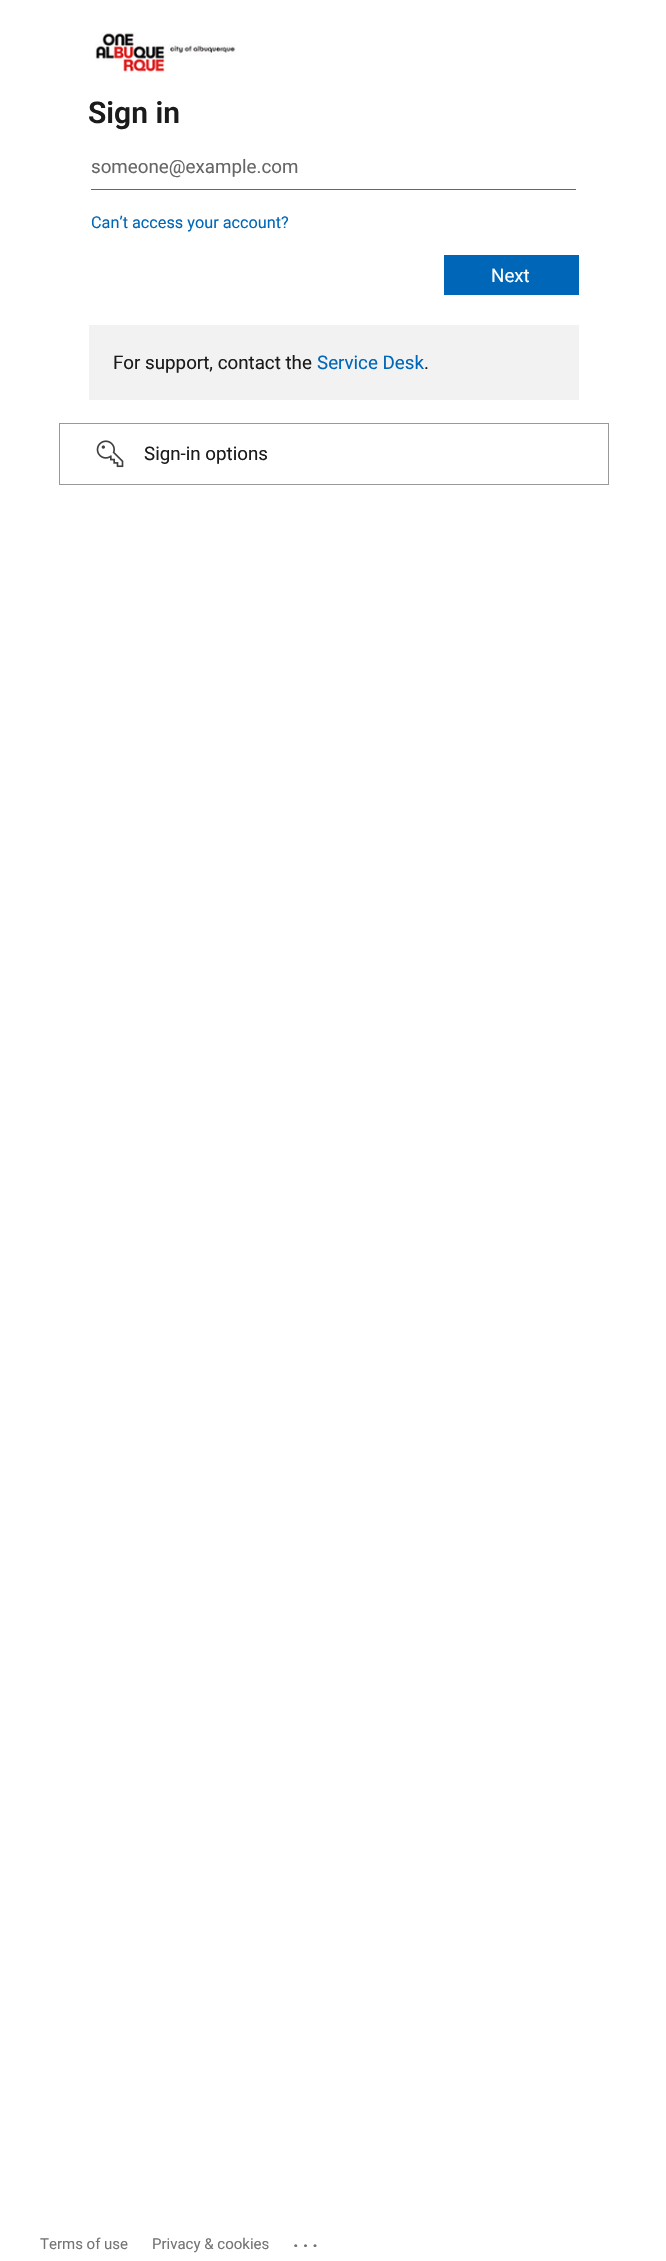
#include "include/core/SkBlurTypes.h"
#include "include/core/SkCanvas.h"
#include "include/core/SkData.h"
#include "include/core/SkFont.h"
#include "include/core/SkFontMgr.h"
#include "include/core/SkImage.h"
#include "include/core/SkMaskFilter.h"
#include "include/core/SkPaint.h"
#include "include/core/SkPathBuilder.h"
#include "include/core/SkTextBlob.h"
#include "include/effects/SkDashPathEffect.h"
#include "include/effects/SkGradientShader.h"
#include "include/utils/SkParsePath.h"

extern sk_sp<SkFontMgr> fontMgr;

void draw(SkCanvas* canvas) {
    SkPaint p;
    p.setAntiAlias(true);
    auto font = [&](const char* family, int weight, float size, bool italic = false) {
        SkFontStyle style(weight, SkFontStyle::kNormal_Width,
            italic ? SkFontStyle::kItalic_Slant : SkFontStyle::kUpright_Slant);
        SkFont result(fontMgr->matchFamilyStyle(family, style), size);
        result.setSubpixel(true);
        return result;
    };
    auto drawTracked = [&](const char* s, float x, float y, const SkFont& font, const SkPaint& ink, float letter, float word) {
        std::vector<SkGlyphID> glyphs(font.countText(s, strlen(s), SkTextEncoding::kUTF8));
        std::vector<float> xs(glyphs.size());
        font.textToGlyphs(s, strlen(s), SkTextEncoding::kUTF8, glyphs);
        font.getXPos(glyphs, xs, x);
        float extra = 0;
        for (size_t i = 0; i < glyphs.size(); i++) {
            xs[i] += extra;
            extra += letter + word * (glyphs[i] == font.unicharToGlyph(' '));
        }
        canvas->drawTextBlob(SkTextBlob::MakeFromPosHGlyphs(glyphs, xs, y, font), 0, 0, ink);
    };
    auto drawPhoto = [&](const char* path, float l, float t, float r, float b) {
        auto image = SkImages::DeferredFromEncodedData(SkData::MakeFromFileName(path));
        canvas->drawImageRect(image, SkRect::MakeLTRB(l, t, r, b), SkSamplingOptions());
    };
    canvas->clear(0xFFFFFFFF);
    drawPhoto("media/1.png", 95, 32, 236, 73);
    auto font1 = font("Roboto", 600, 30);
    p.setColor(0xFF1B1B1B);
    canvas->drawString("Sign in", 88, 123, font1, p);
    p.setColor(0xFF666666);
    canvas->drawRect(SkRect::MakeLTRB(91, 189, 576, 190), p);
    auto font2 = font("Roboto", 400, 18.75f);
    canvas->drawString("someone@example.com", 91, 173, font2, p);
    auto font3 = font("Roboto", 400, 16.25f);
    p.setColor(0xFF0067B8);
    canvas->drawString("Can’t access your account?", 91, 228, font3, p);
    canvas->drawRect(SkRect::MakeLTRB(444, 255, 579, 295), p);
    p.setColor(0xFFFFFFFF);
    canvas->drawString("Next", 491, 282, font2, p);
    p.setColor(0xFFF2F2F2);
    canvas->drawRect(SkRect::MakeLTRB(89, 325, 579, 400), p);
    p.setColor(0xFF1B1B1B);
    canvas->drawString("For support, contact the", 113, 369, font2, p);
    p.setColor(0xFF0067B8);
    canvas->drawString("Service Desk", 317, 369, font2, p);
    p.setColor(0xFF1B1B1B);
    canvas->drawString(".", 424, 369, font2, p);
    p.setStyle(SkPaint::kStroke_Style);
    p.setStrokeWidth(1);
    p.setColor(0xFF999999);
    canvas->drawRect(SkRect::MakeLTRB(59.5f, 423.5f, 608.5f, 484.5f), p);
    drawPhoto("media/2.png", 96, 440, 124, 468);
    p.setStyle(SkPaint::kFill_Style);
    p.setColor(0xFF1B1B1B);
    canvas->drawString("Sign-in options", 144, 460, font2, p);
    auto font4 = font("Roboto", 400, 15);
    p.setColor(0xFF747474);
    canvas->drawString("Terms of use", 40, 2249, font4, p);
    canvas->drawString("Privacy & cookies", 152, 2249, font4, p);
    auto font5 = font("Roboto", 600, 20);
    drawTracked("...", 293, 2247, font5, p, 4, 0);
}
